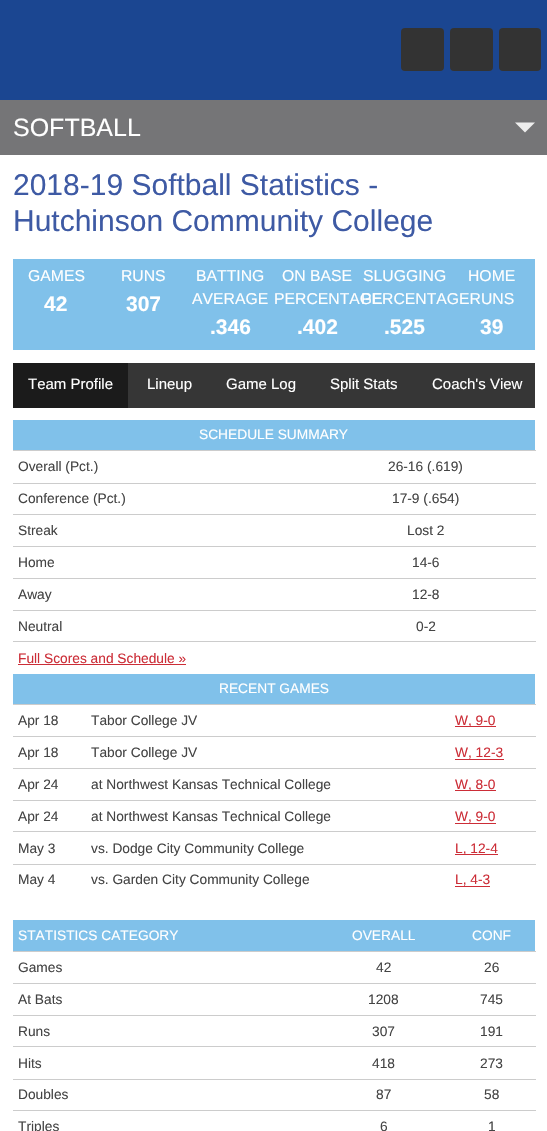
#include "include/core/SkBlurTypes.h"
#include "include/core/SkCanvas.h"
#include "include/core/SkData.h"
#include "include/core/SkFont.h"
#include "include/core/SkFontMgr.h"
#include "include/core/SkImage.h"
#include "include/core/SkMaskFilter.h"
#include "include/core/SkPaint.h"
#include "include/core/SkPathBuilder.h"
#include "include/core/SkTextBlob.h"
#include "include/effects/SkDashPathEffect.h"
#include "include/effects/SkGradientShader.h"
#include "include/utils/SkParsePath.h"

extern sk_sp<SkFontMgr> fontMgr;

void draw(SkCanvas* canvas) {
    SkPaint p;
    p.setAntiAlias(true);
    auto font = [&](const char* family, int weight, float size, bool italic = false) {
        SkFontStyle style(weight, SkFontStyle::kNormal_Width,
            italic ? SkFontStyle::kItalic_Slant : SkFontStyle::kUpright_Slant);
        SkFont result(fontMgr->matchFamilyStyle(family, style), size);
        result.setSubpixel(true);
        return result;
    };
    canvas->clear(0xFF757577);
    p.setColor(0xFF1B4691);
    canvas->drawRect(SkRect::MakeLTRB(0, 0, 547, 100), p);
    p.setColor(0xFF333333);
    canvas->drawRoundRect(SkRect::MakeLTRB(401, 28, 444, 71), 4, 4, p);
    canvas->drawRoundRect(SkRect::MakeLTRB(450, 28, 493, 71), 4, 4, p);
    canvas->drawRoundRect(SkRect::MakeLTRB(499, 28, 541, 71), 4, 4, p);
    auto font1 = font("Liberation Sans", 400, 25);
    p.setColor(0xFFFFFFFF);
    canvas->drawString("SOFTBALL", 13, 136, font1, p);
    p.setColor(0xFFEEEEEE);
    canvas->drawPath(SkPathBuilder().moveTo(515, 122.5f).lineTo(535, 122.5f).lineTo(525, 132.5f).close().detach(), p);
    p.setColor(0xFFFFFFFF);
    canvas->drawRect(SkRect::MakeLTRB(0, 155, 547, 1131), p);
    auto font2 = font("Liberation Sans", 400, 30);
    p.setColor(0xFF3E5AA4);
    canvas->drawString("2018-19 Softball Statistics -", 13, 195, font2, p);
    canvas->drawString("Hutchinson Community College", 13, 231, font2, p);
    p.setColor(0xFF80C1EA);
    canvas->drawRect(SkRect::MakeLTRB(13, 259, 535, 350), p);
    auto font3 = font("Liberation Sans", 400, 15.75f);
    p.setColor(0xFFFFFFFF);
    canvas->drawString("GAMES", 28, 281, font3, p);
    auto font4 = font("Liberation Sans", 700, 21);
    canvas->drawString("42", 44, 311, font4, p);
    canvas->drawString("RUNS", 121, 281, font3, p);
    canvas->drawString("307", 126, 311, font4, p);
    canvas->drawString("BATTING", 196, 281, font3, p);
    canvas->drawString("AVERAGE", 192, 304, font3, p);
    canvas->drawString(".346", 210, 334, font4, p);
    canvas->drawString("ON BASE", 282, 281, font3, p);
    canvas->drawString("PERCENTAGE", 274, 304, font3, p);
    canvas->drawString(".402", 297, 334, font4, p);
    canvas->drawString("SLUGGING", 363, 281, font3, p);
    canvas->drawString("PERCENTAGERUNS", 361, 304, font3, p);
    canvas->drawString(".525", 384, 334, font4, p);
    canvas->drawString("HOME", 468, 281, font3, p);
    canvas->drawString("39", 480, 334, font4, p);
    p.setColor(0xFF363636);
    canvas->drawRect(SkRect::MakeLTRB(128, 363, 535, 408), p);
    p.setColor(0xFF1B1B1B);
    canvas->drawRect(SkRect::MakeLTRB(13, 363, 128, 408), p);
    auto font5 = font("Liberation Sans", 400, 15);
    p.setColor(0xFFFFFFFF);
    {
        const struct { const char* s; float x, y; } items[] = {
            {"Team Profile", 28, 389},
            {"Lineup", 147, 389},
            {"Game Log", 226, 389},
            {"Split Stats", 330, 389},
            {"Coach's View", 432, 389},
        };
        for (auto [s, x, y] : items) {
            canvas->drawString(s, x, y, font5, p);
        }
    }
    p.setColor(0xFF80C1EA);
    canvas->drawRect(SkRect::MakeLTRB(13, 420, 535, 450), p);
    auto font6 = font("Liberation Sans", 400, 13.75f);
    p.setColor(0xFFFFFFFF);
    canvas->drawString("SCHEDULE SUMMARY", 199, 439, font6, p);
    p.setColor(0xFF444444);
    canvas->drawString("Overall (Pct.)", 18, 471, font6, p);
    p.setColor(0xFFCCCCCC);
    canvas->drawRect(SkRect::MakeLTRB(13, 450, 536, 451), p);
    p.setColor(0xFF444444);
    canvas->drawString("26-16 (.619)", 388, 471, font6, p);
    canvas->drawString("Conference (Pct.)", 18, 503, font6, p);
    p.setColor(0xFFCCCCCC);
    canvas->drawRect(SkRect::MakeLTRB(13, 483, 536, 484), p);
    p.setColor(0xFF444444);
    canvas->drawString("17-9 (.654)", 392, 503, font6, p);
    canvas->drawString("Streak", 18, 535, font6, p);
    p.setColor(0xFFCCCCCC);
    canvas->drawRect(SkRect::MakeLTRB(13, 514, 536, 515), p);
    p.setColor(0xFF444444);
    canvas->drawString("Lost 2", 407, 535, font6, p);
    canvas->drawString("Home", 18, 567, font6, p);
    p.setColor(0xFFCCCCCC);
    canvas->drawRect(SkRect::MakeLTRB(13, 546, 536, 547), p);
    p.setColor(0xFF444444);
    canvas->drawString("14-6", 412, 567, font6, p);
    canvas->drawString("Away", 18, 599, font6, p);
    p.setColor(0xFFCCCCCC);
    canvas->drawRect(SkRect::MakeLTRB(13, 578, 536, 579), p);
    p.setColor(0xFF444444);
    canvas->drawString("12-8", 412, 599, font6, p);
    canvas->drawString("Neutral", 18, 631, font6, p);
    p.setColor(0xFFCCCCCC);
    canvas->drawRect(SkRect::MakeLTRB(13, 610, 536, 611), p);
    p.setColor(0xFF444444);
    canvas->drawString("0-2", 416, 631, font6, p);
    p.setColor(0xFFCCCCCC);
    canvas->drawRect(SkRect::MakeLTRB(13, 641, 536, 642), p);
    p.setColor(0xFFCC2D37);
    canvas->drawString("Full Scores and Schedule »", 18, 663, font6, p);
    canvas->drawRect(SkRect::MakeLTRB(18, 664, 186, 665), p);
    p.setColor(0xFF80C1EA);
    canvas->drawRect(SkRect::MakeLTRB(13, 674, 535, 704), p);
    p.setColor(0xFFFFFFFF);
    canvas->drawString("RECENT GAMES", 219, 693, font6, p);
    p.setColor(0xFF444444);
    canvas->drawString("Apr 18", 18, 725, font6, p);
    canvas->drawString("Tabor College JV", 91, 725, font6, p);
    p.setColor(0xFFCCCCCC);
    canvas->drawRect(SkRect::MakeLTRB(13, 704, 536, 705), p);
    p.setColor(0xFFCC2D37);
    canvas->drawRect(SkRect::MakeLTRB(455, 726, 496, 727), p);
    canvas->drawString("W, 9-0", 455, 725, font6, p);
    p.setColor(0xFF444444);
    canvas->drawString("Apr 18", 18, 757, font6, p);
    canvas->drawString("Tabor College JV", 91, 757, font6, p);
    p.setColor(0xFFCCCCCC);
    canvas->drawRect(SkRect::MakeLTRB(13, 736, 536, 737), p);
    p.setColor(0xFFCC2D37);
    canvas->drawString("W, 12-3", 455, 757, font6, p);
    canvas->drawRect(SkRect::MakeLTRB(455, 759, 504, 760), p);
    p.setColor(0xFF444444);
    canvas->drawString("Apr 24", 18, 789, font6, p);
    canvas->drawString("at Northwest Kansas Technical College", 91, 789, font6, p);
    p.setColor(0xFFCCCCCC);
    canvas->drawRect(SkRect::MakeLTRB(13, 768, 536, 769), p);
    p.setColor(0xFFCC2D37);
    canvas->drawRect(SkRect::MakeLTRB(455, 790, 496, 791), p);
    canvas->drawString("W, 8-0", 455, 789, font6, p);
    p.setColor(0xFF444444);
    canvas->drawString("Apr 24", 18, 821, font6, p);
    canvas->drawString("at Northwest Kansas Technical College", 91, 821, font6, p);
    p.setColor(0xFFCCCCCC);
    canvas->drawRect(SkRect::MakeLTRB(13, 800, 536, 801), p);
    p.setColor(0xFFCC2D37);
    canvas->drawString("W, 9-0", 455, 821, font6, p);
    canvas->drawRect(SkRect::MakeLTRB(455, 823, 496, 824), p);
    p.setColor(0xFF444444);
    canvas->drawString("May 3", 18, 853, font6, p);
    canvas->drawString("vs. Dodge City Community College", 91, 853, font6, p);
    p.setColor(0xFFCCCCCC);
    canvas->drawRect(SkRect::MakeLTRB(13, 831, 536, 832), p);
    p.setColor(0xFFCC2D37);
    canvas->drawRect(SkRect::MakeLTRB(455, 854, 498, 855), p);
    canvas->drawString("L, 12-4", 455, 853, font6, p);
    p.setColor(0xFF444444);
    canvas->drawString("May 4", 18, 884, font6, p);
    canvas->drawString("vs. Garden City Community College", 91, 884, font6, p);
    p.setColor(0xFFCCCCCC);
    canvas->drawRect(SkRect::MakeLTRB(13, 864, 536, 865), p);
    p.setColor(0xFFCC2D37);
    canvas->drawString("L, 4-3", 455, 884, font6, p);
    canvas->drawRect(SkRect::MakeLTRB(455, 886, 490, 887), p);
    p.setColor(0xFF80C1EA);
    canvas->drawRect(SkRect::MakeLTRB(13, 920, 535, 951), p);
    p.setColor(0xFFFFFFFF);
    {
        const struct { const char* s; float x, y; } items[] = {
            {"STATISTICS CATEGORY", 18, 940},
            {"OVERALL", 352, 940},
            {"CONF", 472, 940},
        };
        for (auto [s, x, y] : items) {
            canvas->drawString(s, x, y, font6, p);
        }
    }
    p.setColor(0xFF444444);
    canvas->drawString("Games", 18, 972, font6, p);
    canvas->drawString("42", 376, 972, font6, p);
    p.setColor(0xFFCCCCCC);
    canvas->drawRect(SkRect::MakeLTRB(13, 951, 536, 952), p);
    p.setColor(0xFF444444);
    {
        const struct { const char* s; float x, y; } items[] = {
            {"26", 484, 972},
            {"At Bats", 18, 1004},
            {"1208", 368, 1004},
        };
        for (auto [s, x, y] : items) {
            canvas->drawString(s, x, y, font6, p);
        }
    }
    p.setColor(0xFFCCCCCC);
    canvas->drawRect(SkRect::MakeLTRB(13, 983, 536, 984), p);
    p.setColor(0xFF444444);
    {
        const struct { const char* s; float x, y; } items[] = {
            {"745", 480, 1004},
            {"Runs", 18, 1036},
            {"307", 372, 1036},
        };
        for (auto [s, x, y] : items) {
            canvas->drawString(s, x, y, font6, p);
        }
    }
    p.setColor(0xFFCCCCCC);
    canvas->drawRect(SkRect::MakeLTRB(13, 1015, 536, 1016), p);
    p.setColor(0xFF444444);
    {
        const struct { const char* s; float x, y; } items[] = {
            {"191", 480, 1036},
            {"Hits", 18, 1068},
            {"418", 372, 1068},
        };
        for (auto [s, x, y] : items) {
            canvas->drawString(s, x, y, font6, p);
        }
    }
    p.setColor(0xFFCCCCCC);
    canvas->drawRect(SkRect::MakeLTRB(13, 1046, 536, 1047), p);
    p.setColor(0xFF444444);
    {
        const struct { const char* s; float x, y; } items[] = {
            {"273", 480, 1068},
            {"Doubles", 18, 1099},
            {"87", 376, 1099},
        };
        for (auto [s, x, y] : items) {
            canvas->drawString(s, x, y, font6, p);
        }
    }
    p.setColor(0xFFCCCCCC);
    canvas->drawRect(SkRect::MakeLTRB(13, 1079, 536, 1080), p);
    p.setColor(0xFF444444);
    {
        const struct { const char* s; float x, y; } items[] = {
            {"58", 484, 1099},
            {"Triples", 18, 1131},
            {"6", 380, 1131},
        };
        for (auto [s, x, y] : items) {
            canvas->drawString(s, x, y, font6, p);
        }
    }
    p.setColor(0xFFCCCCCC);
    canvas->drawRect(SkRect::MakeLTRB(13, 1110, 536, 1111), p);
    p.setColor(0xFF444444);
    canvas->drawString("1", 488, 1131, font6, p);
}
